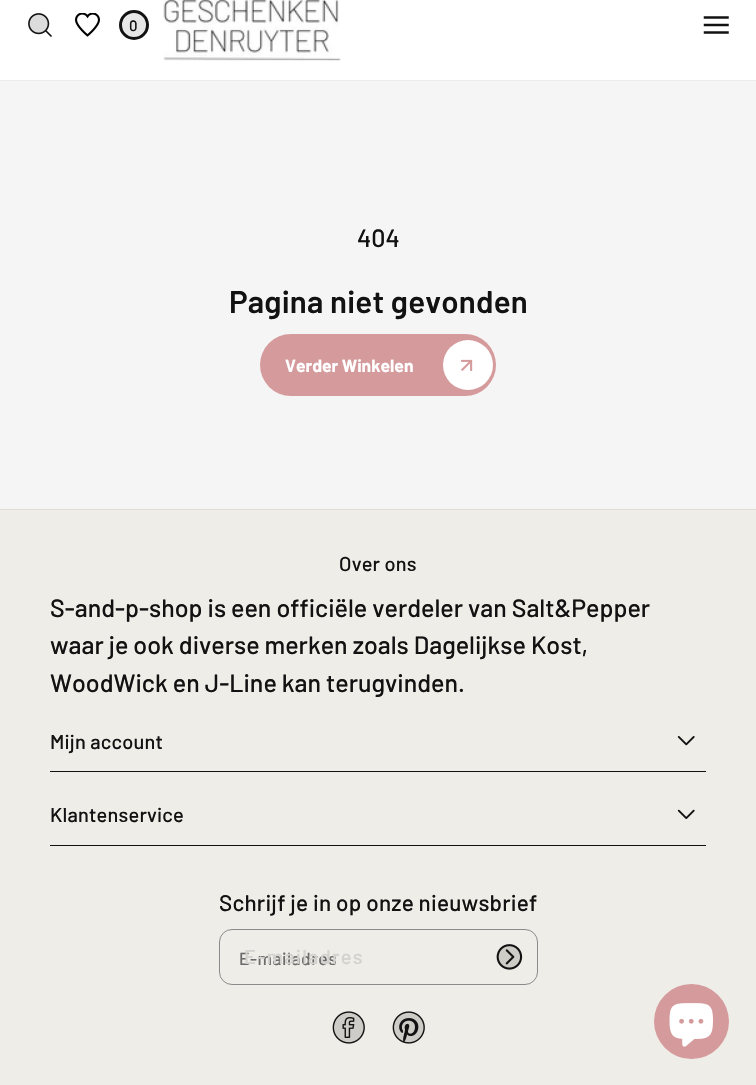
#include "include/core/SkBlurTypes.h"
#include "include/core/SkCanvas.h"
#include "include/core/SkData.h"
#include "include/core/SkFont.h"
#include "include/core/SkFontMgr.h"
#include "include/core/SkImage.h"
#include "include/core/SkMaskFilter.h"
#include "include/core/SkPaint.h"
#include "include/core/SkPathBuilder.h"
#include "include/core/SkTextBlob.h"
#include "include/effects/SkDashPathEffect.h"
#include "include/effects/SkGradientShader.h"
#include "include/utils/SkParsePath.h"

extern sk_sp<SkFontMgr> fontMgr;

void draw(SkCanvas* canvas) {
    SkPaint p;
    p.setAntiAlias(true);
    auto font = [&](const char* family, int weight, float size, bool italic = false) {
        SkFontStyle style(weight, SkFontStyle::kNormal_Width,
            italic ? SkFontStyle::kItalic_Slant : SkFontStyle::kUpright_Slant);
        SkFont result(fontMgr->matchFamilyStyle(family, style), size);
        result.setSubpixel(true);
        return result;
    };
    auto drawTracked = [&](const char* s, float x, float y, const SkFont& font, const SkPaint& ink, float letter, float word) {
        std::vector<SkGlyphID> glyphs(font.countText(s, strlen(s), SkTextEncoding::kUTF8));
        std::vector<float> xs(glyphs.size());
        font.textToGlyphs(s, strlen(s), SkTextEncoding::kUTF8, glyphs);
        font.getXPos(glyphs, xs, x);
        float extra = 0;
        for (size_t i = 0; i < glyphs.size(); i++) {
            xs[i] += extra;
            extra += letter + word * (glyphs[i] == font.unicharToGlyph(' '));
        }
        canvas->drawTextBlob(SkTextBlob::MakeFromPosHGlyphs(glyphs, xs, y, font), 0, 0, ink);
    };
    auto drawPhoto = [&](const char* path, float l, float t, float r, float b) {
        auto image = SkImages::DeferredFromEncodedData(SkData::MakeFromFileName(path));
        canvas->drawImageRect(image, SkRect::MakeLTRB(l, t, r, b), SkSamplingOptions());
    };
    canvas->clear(0xFFF5F5F5);
    p.setColor(0xFFFFFFFF);
    canvas->drawRect(SkRect::MakeLTRB(0, 0, 756, 80), p);
    p.setColor(0xFFECECEC);
    canvas->drawRect(SkRect::MakeLTRB(0, 80, 756, 81), p);
    drawPhoto("media/1.png", 28, 13, 52, 37);
    drawPhoto("media/2.png", 75, 13, 100, 37);
    p.setColor(0xFFE7E7E7);
    canvas->drawCircle(134, 25, 13.5f, p);
    p.setStyle(SkPaint::kStroke_Style);
    p.setStrokeWidth(3);
    p.setColor(0xFF121212);
    canvas->drawCircle(134, 25, 13.5f, p);
    auto font1 = font("Barlow", 500, 15);
    p.setStyle(SkPaint::kFill_Style);
    canvas->drawString("0", 129, 31, font1, p);
    drawPhoto("media/3.png", 163, 0, 341, 61);
    drawPhoto("media/4.png", 703, 16, 729, 34);
    auto font2 = font("Barlow", 500, 25);
    canvas->drawString("404", 357, 247, font2, p);
    auto font3 = font("Barlow", 600, 31.25f);
    drawTracked("Pagina niet gevonden", 229, 313, font3, p, 0.2f, 0);
    p.setColor(0xFFD59A9C);
    canvas->drawRoundRect(SkRect::MakeLTRB(260, 334, 496, 396), 31, 31, p);
    auto font4 = font("Barlow", 700, 17.5f);
    p.setColor(0xFFFFFFFF);
    canvas->drawString("Verder Winkelen", 285, 372, font4, p);
    canvas->drawCircle(468, 365, 25, p);
    drawPhoto("media/5.png", 460, 359, 473, 371);
    p.setColor(0xFFEFEDE7);
    canvas->drawRect(SkRect::MakeLTRB(0, 510, 756, 1085), p);
    p.setColor(0xFFDDDBD6);
    canvas->drawRect(SkRect::MakeLTRB(0, 509, 756, 510), p);
    auto font5 = font("Barlow", 500, 20);
    p.setColor(0xFF121212);
    drawTracked("Over ons", 339, 571, font5, p, 0.2f, 0);
    {
        const struct { const char* s; float x, y; } items[] = {
            {"S-and-p-shop is een officiële verdeler van Salt&Pepper", 50, 617},
            {"waar je ook diverse merken zoals Dagelijkse Kost,", 50, 654},
            {"WoodWick en J-Line kan terugvinden.", 50, 692},
        };
        for (auto [s, x, y] : items) {
            canvas->drawString(s, x, y, font2, p);
        }
    }
    canvas->drawRect(SkRect::MakeLTRB(50, 771, 706, 772), p);
    drawTracked("Mijn account", 50, 749, font5, p, 0.2f, 0);
    drawPhoto("media/6.png", 677, 736, 695, 746);
    canvas->drawRect(SkRect::MakeLTRB(50, 845, 706, 846), p);
    drawTracked("Klantenservice", 50, 822, font5, p, 0.2f, 0);
    drawPhoto("media/7.png", 677, 809, 695, 819);
    auto font6 = font("Barlow", 500, 22.5f);
    drawTracked("Schrijf je in op onze nieuwsbrief", 219, 911, font6, p, 0.2f, 0);
    p.setStyle(SkPaint::kStroke_Style);
    p.setStrokeWidth(1);
    p.setColor(0xFF8A8A8A);
    canvas->drawRoundRect(SkRect::MakeLTRB(219.5f, 929.5f, 537.5f, 984.5f), 12.5f, 12.5f, p);
    auto font7 = font("Barlow", 500, 17.5f);
    p.setStyle(SkPaint::kFill_Style);
    p.setColor(0xFF6B6B6B);
    drawTracked("E-mailadres", 239, 965, font7, p, 0.5f, 0);
    p.setColor(0xFFD4D2CE);
    drawTracked("E-mailadres", 244, 964, font5, p, 1.25f, 0);
    drawPhoto("media/8.png", 496, 944, 523, 970);
    drawPhoto("media/9.png", 332, 1011, 365, 1044);
    drawPhoto("media/10.png", 392, 1011, 425, 1044);
    p.setColor(0xFFD59A9C);
    canvas->drawCircle(691.5f, 1021.5f, 37.5f, p);
    drawPhoto("media/11.png", 669, 1003, 713, 1047);
}
